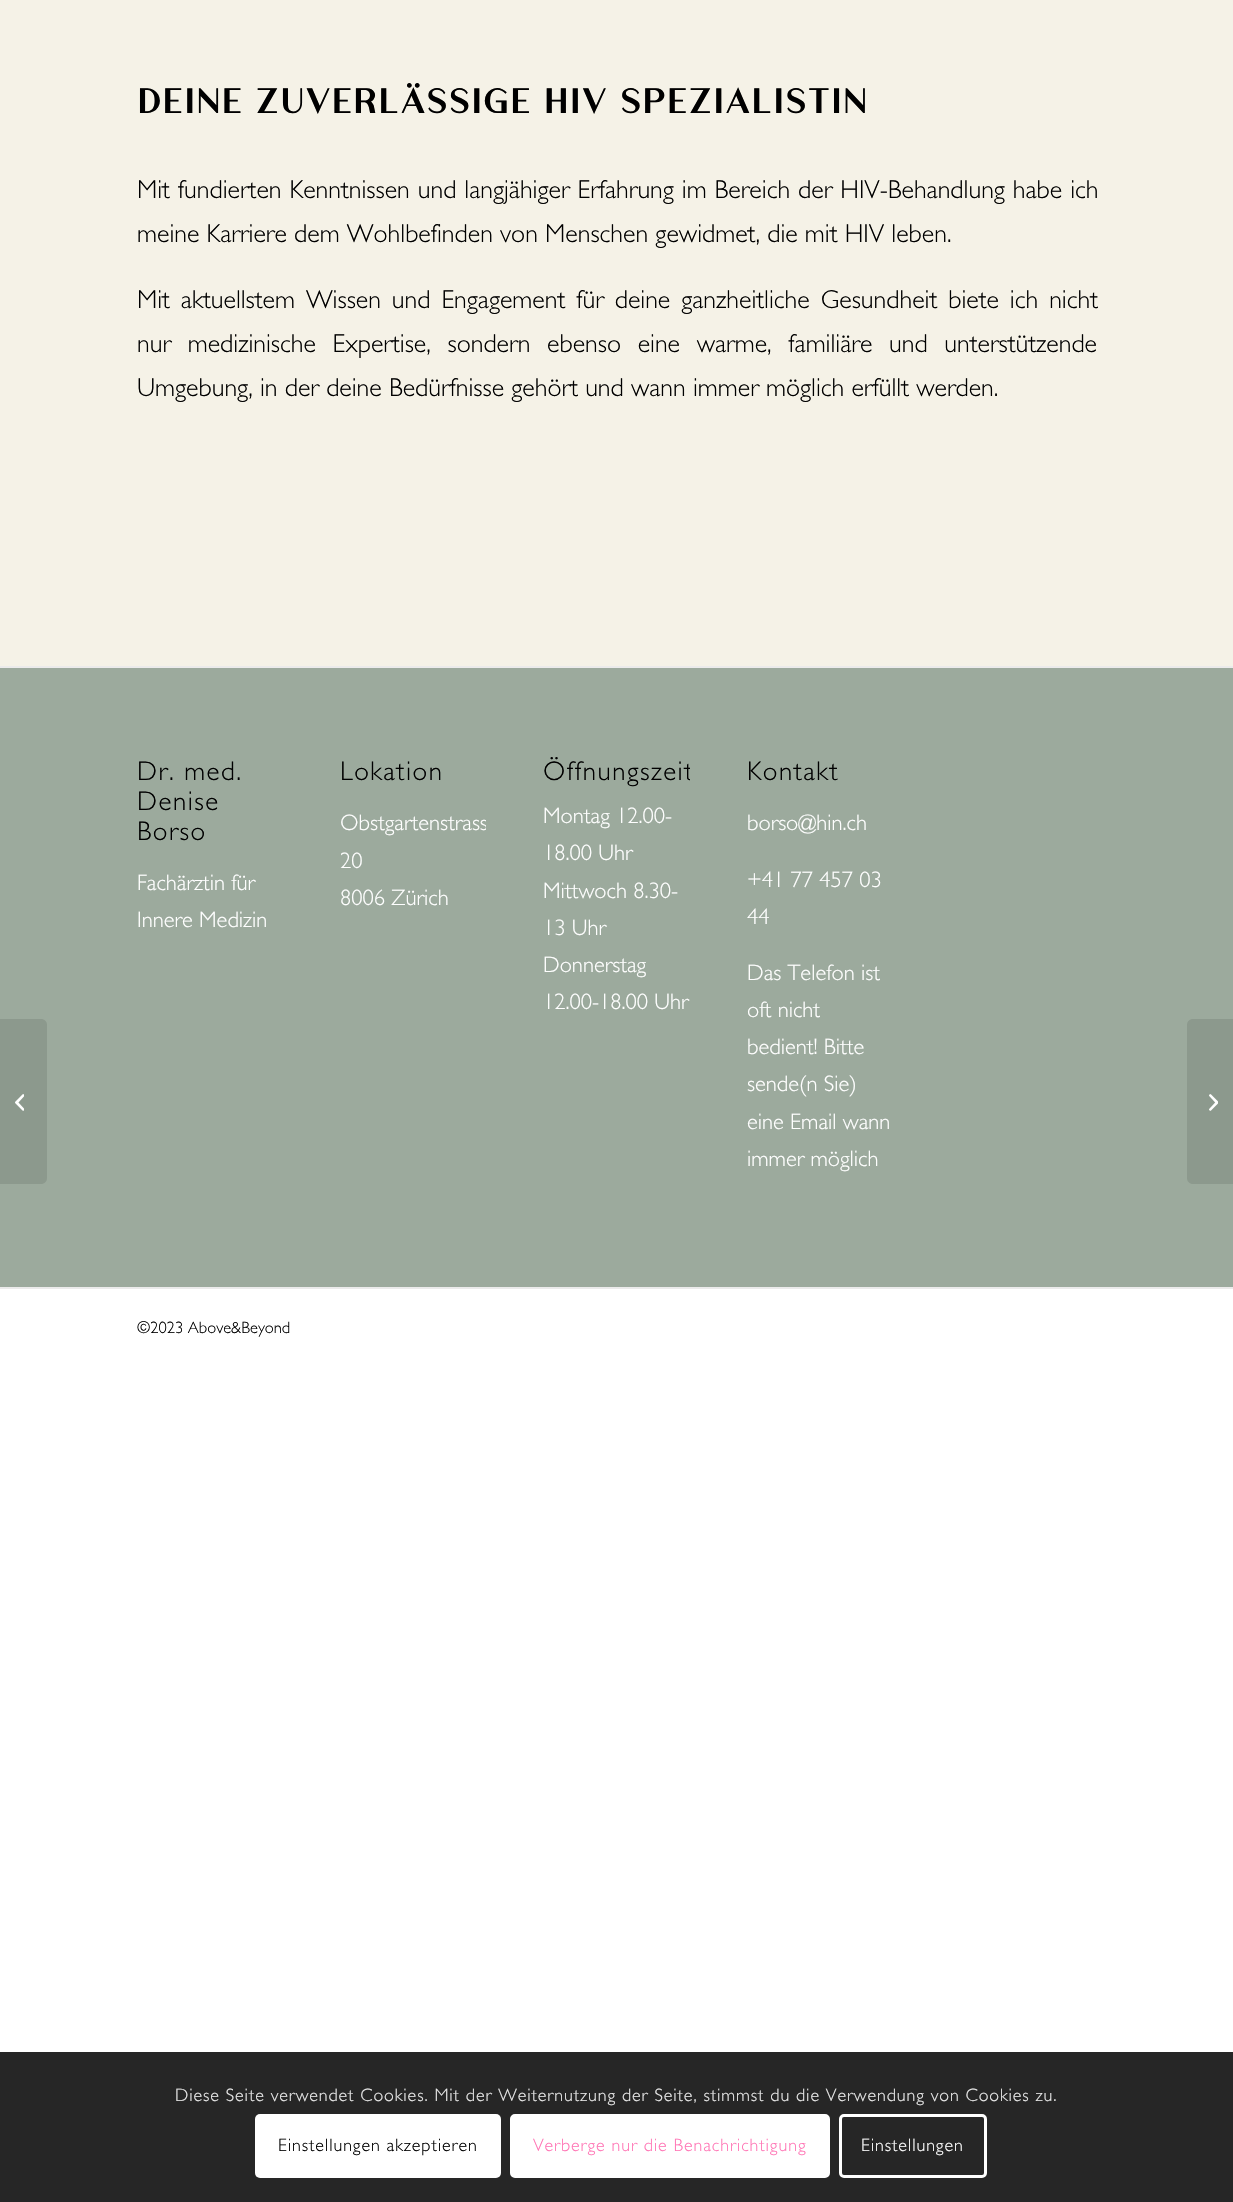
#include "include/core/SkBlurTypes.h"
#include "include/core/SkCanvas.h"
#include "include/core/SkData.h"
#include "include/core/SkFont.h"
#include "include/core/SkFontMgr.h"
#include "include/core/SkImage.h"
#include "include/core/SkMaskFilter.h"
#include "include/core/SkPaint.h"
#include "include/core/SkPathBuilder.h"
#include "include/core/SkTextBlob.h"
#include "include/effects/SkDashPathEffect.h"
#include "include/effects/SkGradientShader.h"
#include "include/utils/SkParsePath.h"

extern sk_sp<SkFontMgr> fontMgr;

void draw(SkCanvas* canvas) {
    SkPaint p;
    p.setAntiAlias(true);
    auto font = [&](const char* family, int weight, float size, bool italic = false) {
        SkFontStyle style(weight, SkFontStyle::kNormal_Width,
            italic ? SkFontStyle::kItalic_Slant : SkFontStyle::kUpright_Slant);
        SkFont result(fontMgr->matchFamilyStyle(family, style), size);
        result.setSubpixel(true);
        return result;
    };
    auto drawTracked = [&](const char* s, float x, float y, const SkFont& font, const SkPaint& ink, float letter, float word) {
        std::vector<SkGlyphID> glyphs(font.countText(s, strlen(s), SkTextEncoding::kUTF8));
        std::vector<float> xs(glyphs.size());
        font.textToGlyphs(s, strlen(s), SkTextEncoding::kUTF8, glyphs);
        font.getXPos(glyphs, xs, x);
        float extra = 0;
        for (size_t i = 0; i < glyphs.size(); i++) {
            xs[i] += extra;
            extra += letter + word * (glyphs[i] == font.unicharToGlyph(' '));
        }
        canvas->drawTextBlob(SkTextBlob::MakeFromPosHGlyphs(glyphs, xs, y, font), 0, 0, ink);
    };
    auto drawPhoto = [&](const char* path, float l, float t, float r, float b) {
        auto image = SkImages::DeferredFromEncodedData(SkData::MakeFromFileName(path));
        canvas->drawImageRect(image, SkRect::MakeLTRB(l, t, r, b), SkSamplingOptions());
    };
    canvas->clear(0xFFFFFFFF);
    p.setColor(0xFF9CAA9D);
    canvas->drawRect(SkRect::MakeLTRB(0, 668, 1233, 1287), p);
    p.setColor(0xFF8C998D);
    canvas->drawPath(SkPathBuilder().moveTo(0, 1019).lineTo(41, 1019).cubicTo(44.5f, 1019, 47, 1021.5f, 47, 1025).lineTo(47, 1178).cubicTo(47, 1181.5f, 44.5f, 1184, 41, 1184).lineTo(0, 1184).close().detach(), p);
    drawPhoto("media/1.png", 15, 1094, 24, 1111);
    p.setColor(0xFFF5F2E7);
    canvas->drawRect(SkRect::MakeLTRB(0, 0, 1233, 666), p);
    auto font1 = font("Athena", 700, 36);
    p.setColor(0xFF000000);
    drawTracked("DEINE ZUVERLÄSSIGE HIV SPEZIALISTIN", 137, 113, font1, p, 1.5f, 0);
    auto font2 = font("Gill Sans", 300, 25.9f);
    drawTracked("Mit fundierten Kenntnissen und langjähiger Erfahrung im Bereich der HIV-Behandlung habe ich", 137, 198, font2, p, 0, 0.75f);
    canvas->drawString("meine Karriere dem Wohlbefinden von Menschen gewidmet, die mit HIV leben.", 137, 242, font2, p);
    drawTracked("Mit aktuellstem Wissen und Engagement für deine ganzheitliche Gesundheit biete ich nicht", 137, 308, font2, p, 0, 3.75f);
    drawTracked("nur medizinische Expertise, sondern ebenso eine warme, familiäre und unterstützende", 137, 352, font2, p, 0, 9.5f);
    canvas->drawString("Umgebung, in der deine Bedürfnisse gehört und wann immer möglich erfüllt werden.", 137, 396, font2, p);
    p.setColor(0xFFEBEBEB);
    canvas->drawRect(SkRect::MakeLTRB(0, 666, 1233, 668), p);
    auto font3 = font("Gill Sans", 300, 27);
    p.setColor(0xFF000000);
    {
        const struct { const char* s; float x, y; } items[] = {
            {"Dr. med.", 137, 780},
            {"Denise", 137, 810},
            {"Borso", 137, 840},
        };
        for (auto [s, x, y] : items) {
            drawTracked(s, x, y, font3, p, 1.5f, 0);
        }
    }
    auto font4 = font("Gill Sans", 300, 22.5f);
    p.setColor(0xFFFFFFFF);
    canvas->drawString("Fachärztin für", 137, 890, font4, p);
    canvas->drawString("Innere Medizin", 137, 927, font4, p);
    p.setColor(0xFF000000);
    drawTracked("Lokation", 340, 780, font3, p, 1.5f, 0);
    canvas->save();
    canvas->clipRect(SkRect::MakeLTRB(341, 735, 486, 938));
    p.setColor(0xFFFFFFFF);
    canvas->drawString("Obstgartenstrass", 340, 830, font4, p);
    canvas->restore();
    canvas->drawString("20", 340, 868, font4, p);
    canvas->drawString("8006 Zürich", 340, 905, font4, p);
    canvas->save();
    canvas->clipRect(SkRect::MakeLTRB(543, 735, 690, 1022));
    p.setColor(0xFF000000);
    drawTracked("Öffnungszeit", 543, 780, font3, p, 1.5f, 0);
    canvas->restore();
    p.setColor(0xFFFFFFFF);
    {
        const struct { const char* s; float x, y; } items[] = {
            {"Montag 12.00-", 543, 823},
            {"18.00 Uhr", 543, 860},
            {"Mittwoch 8.30-", 543, 898},
            {"13 Uhr", 543, 935},
            {"Donnerstag", 543, 972},
            {"12.00-18.00 Uhr", 543, 1009},
        };
        for (auto [s, x, y] : items) {
            canvas->drawString(s, x, y, font4, p);
        }
    }
    p.setColor(0xFF000000);
    drawTracked("Kontakt", 747, 780, font3, p, 1.5f, 0);
    p.setColor(0xFFFFFFFF);
    {
        const struct { const char* s; float x, y; } items[] = {
            {"borso@hin.ch", 747, 830},
            {"+41 77 457 03", 747, 887},
            {"44", 747, 924},
            {"Das Telefon ist", 747, 980},
            {"oft nicht", 747, 1017},
            {"bedient! Bitte", 747, 1054},
            {"sende(n Sie)", 747, 1091},
            {"eine Email wann", 747, 1129},
            {"immer möglich", 747, 1166},
        };
        for (auto [s, x, y] : items) {
            canvas->drawString(s, x, y, font4, p);
        }
    }
    p.setColor(0xFFEBEBEB);
    canvas->drawRect(SkRect::MakeLTRB(0, 1287, 1233, 1289), p);
    auto font5 = font("Gill Sans", 300, 16.5f);
    p.setColor(0xFF000000);
    canvas->drawString("©2023 Above&Beyond", 137, 1333, font5, p);
    p.setColor(0xFF8C998D);
    canvas->drawPath(SkPathBuilder().moveTo(1193, 1019).lineTo(1233, 1019).lineTo(1233, 1184).lineTo(1193, 1184).cubicTo(1189.5f, 1184, 1187, 1181.5f, 1187, 1178).lineTo(1187, 1025).cubicTo(1187, 1021.5f, 1189.5f, 1019, 1193, 1019).close().detach(), p);
    drawPhoto("media/2.png", 1209, 1094, 1218, 1111);
    p.setColor(0xFF262626);
    canvas->drawRect(SkRect::MakeLTRB(0, 2052, 1233, 2202), p);
    auto font6 = font("Gill Sans", 300, 18);
    p.setColor(0xFFE9E9E9);
    drawTracked("Diese Seite verwendet Cookies. Mit der Weiternutzung der Seite, stimmst du die Verwendung von Cookies zu.", 175, 2101, font6, p, 0.9f, 0);
    p.setColor(0xFFFFFFFF);
    canvas->drawRoundRect(SkRect::MakeLTRB(255, 2114, 501, 2178), 5, 5, p);
    p.setColor(0xFF000000);
    drawTracked("Einstellungen akzeptieren", 278, 2151, font6, p, 0.9f, 0);
    p.setColor(0xFFFFFFFF);
    canvas->drawRoundRect(SkRect::MakeLTRB(511.5f, 2115.5f, 828.5f, 2176.5f), 3.5f, 3.5f, p);
    p.setStyle(SkPaint::kStroke_Style);
    p.setStrokeWidth(3);
    canvas->drawRoundRect(SkRect::MakeLTRB(511.5f, 2115.5f, 828.5f, 2176.5f), 3.5f, 3.5f, p);
    p.setStyle(SkPaint::kFill_Style);
    p.setColor(0xFFFF75B5);
    drawTracked("Verberge nur die Benachrichtigung", 533, 2151, font6, p, 0.9f, 0);
    p.setStyle(SkPaint::kStroke_Style);
    p.setColor(0xFFFFFFFF);
    canvas->drawRoundRect(SkRect::MakeLTRB(840.5f, 2115.5f, 985.5f, 2176.5f), 3.5f, 3.5f, p);
    p.setStyle(SkPaint::kFill_Style);
    drawTracked("Einstellungen", 861, 2151, font6, p, 0.9f, 0);
}
